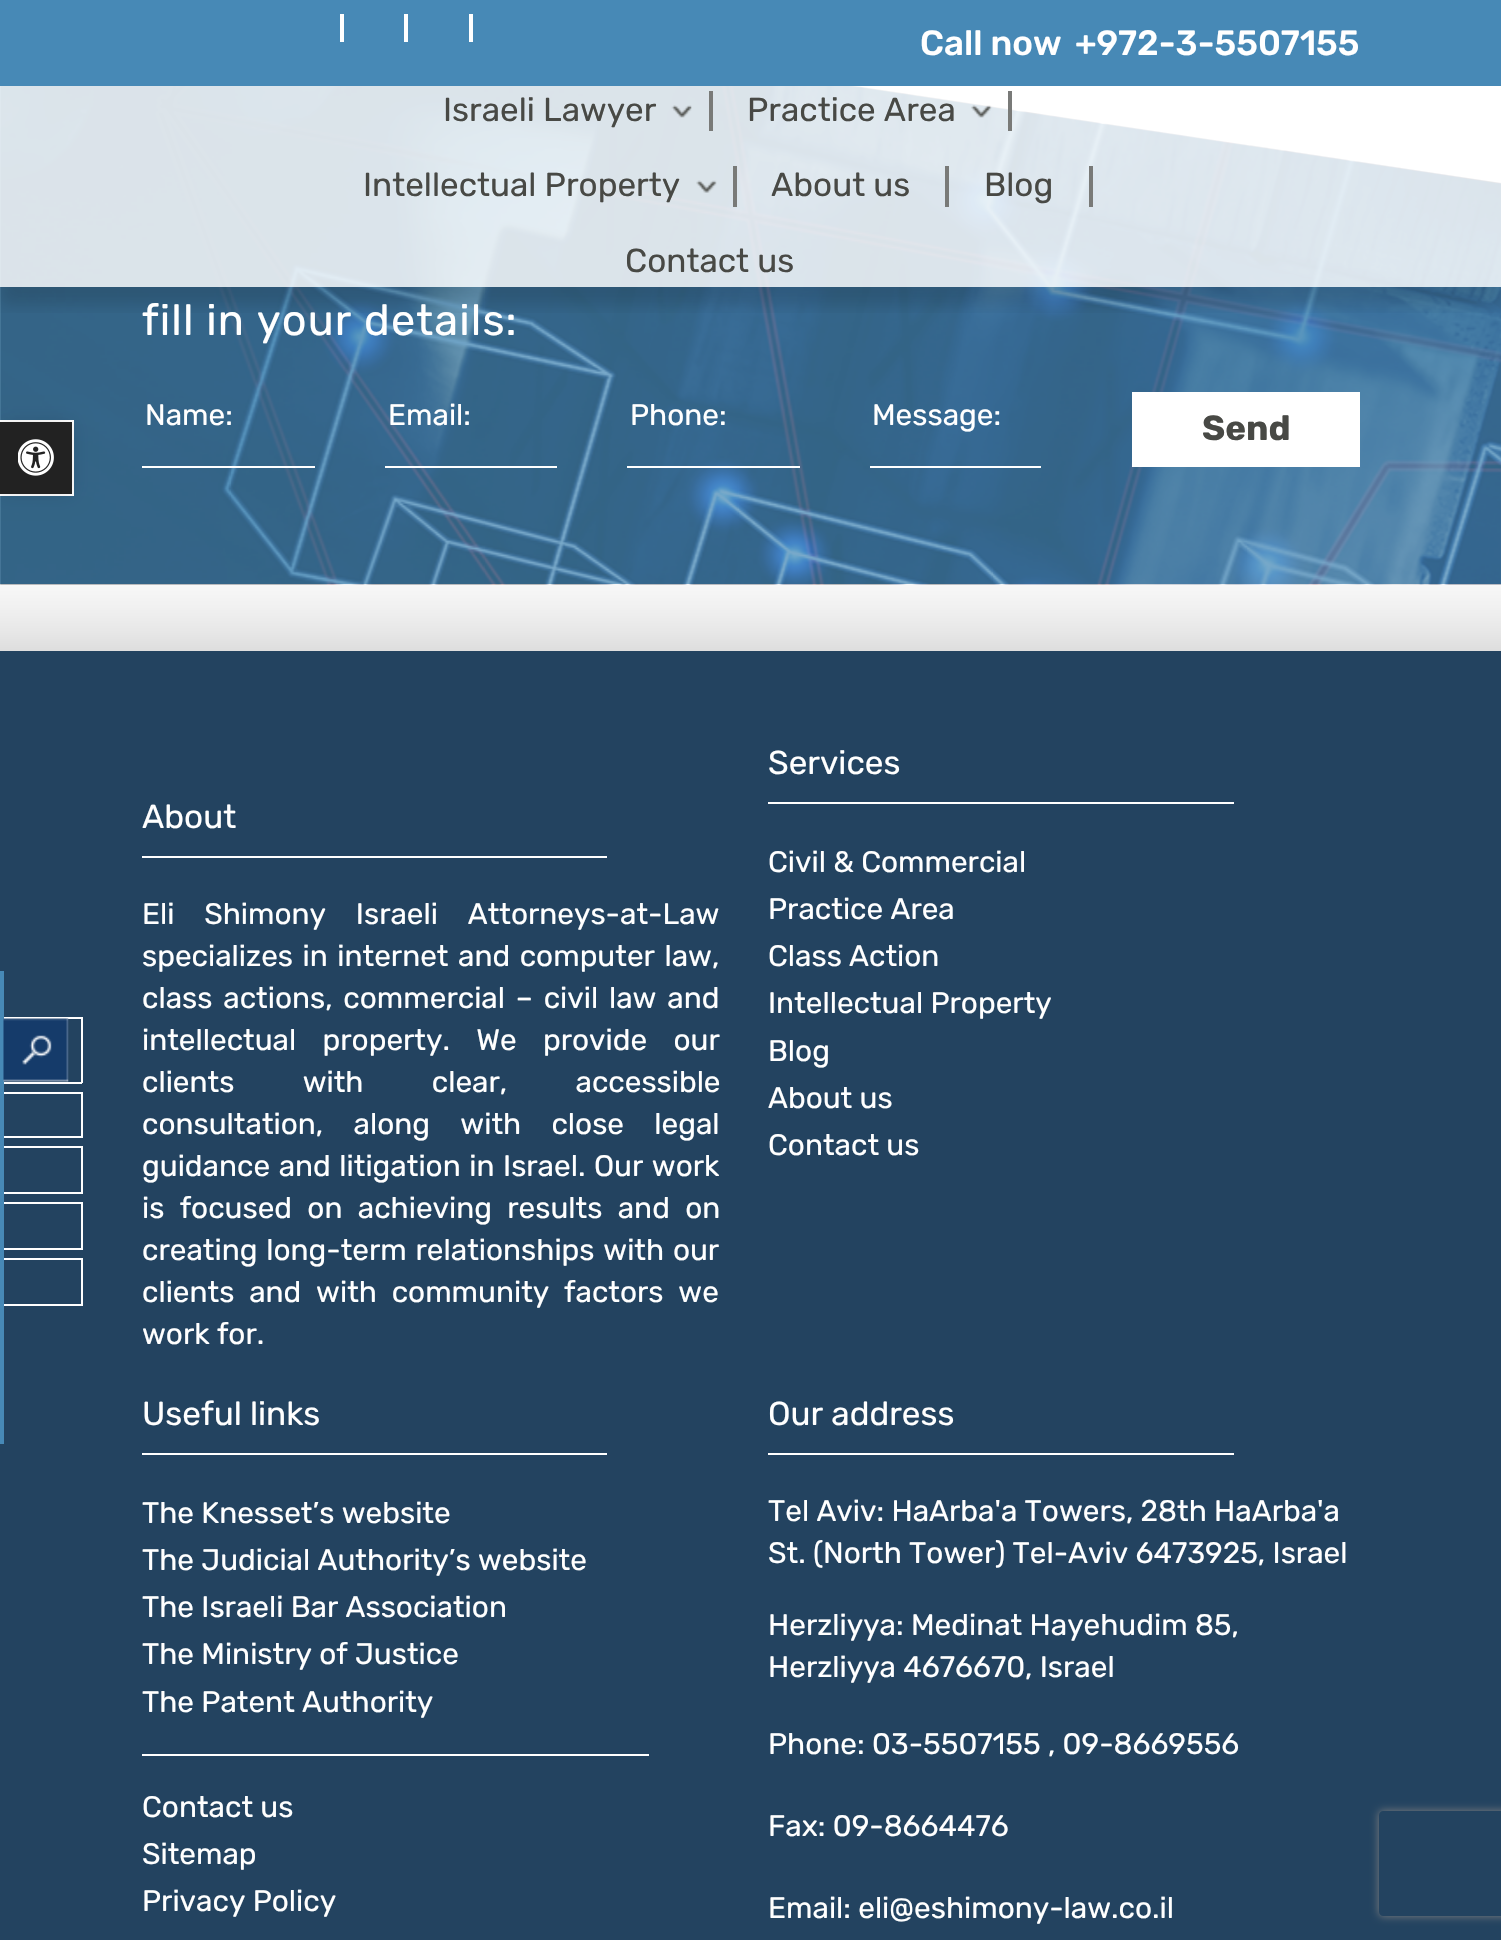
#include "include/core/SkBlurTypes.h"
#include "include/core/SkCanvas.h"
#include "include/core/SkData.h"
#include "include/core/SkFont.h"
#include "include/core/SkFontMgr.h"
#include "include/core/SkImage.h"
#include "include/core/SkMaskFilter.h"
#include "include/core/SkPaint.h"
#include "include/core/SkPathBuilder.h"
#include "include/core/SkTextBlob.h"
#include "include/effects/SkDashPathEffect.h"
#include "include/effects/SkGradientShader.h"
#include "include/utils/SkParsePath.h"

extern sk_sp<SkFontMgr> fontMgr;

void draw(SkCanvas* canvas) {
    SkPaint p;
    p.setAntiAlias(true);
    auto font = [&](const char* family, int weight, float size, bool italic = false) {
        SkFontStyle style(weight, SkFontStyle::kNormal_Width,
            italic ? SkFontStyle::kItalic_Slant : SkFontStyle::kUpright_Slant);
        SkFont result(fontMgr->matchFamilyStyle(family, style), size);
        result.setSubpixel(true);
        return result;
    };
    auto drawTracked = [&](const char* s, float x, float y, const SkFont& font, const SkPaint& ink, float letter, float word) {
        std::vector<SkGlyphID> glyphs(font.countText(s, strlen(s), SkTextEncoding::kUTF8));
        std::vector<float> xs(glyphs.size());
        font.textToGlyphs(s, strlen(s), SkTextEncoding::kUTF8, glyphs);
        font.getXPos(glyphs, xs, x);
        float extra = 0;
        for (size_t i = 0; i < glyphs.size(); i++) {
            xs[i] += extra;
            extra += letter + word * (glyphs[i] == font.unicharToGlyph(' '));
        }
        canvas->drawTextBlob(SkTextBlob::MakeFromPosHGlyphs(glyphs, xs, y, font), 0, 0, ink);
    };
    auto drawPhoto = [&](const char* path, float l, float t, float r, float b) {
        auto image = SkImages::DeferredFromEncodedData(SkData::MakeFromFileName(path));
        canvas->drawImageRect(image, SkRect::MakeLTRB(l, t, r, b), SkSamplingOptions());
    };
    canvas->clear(0xFFFFFFFF);
    p.setColor(0x54000000);
    p.setMaskFilter(SkMaskFilter::MakeBlur(kNormal_SkBlurStyle, 61));
    canvas->drawRect(SkRect::MakeLTRB(-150, 669, 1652, 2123), p);
    p.setMaskFilter(nullptr);
    drawPhoto("media/4.png", 0, 86, 1501, 585);
    p.setColor(0xB84789B6);
    canvas->drawPath(SkPathBuilder().moveTo(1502, 184).lineTo(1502, 584).lineTo(0, 584).lineTo(0, -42).close().detach(), p);
    {
        const struct { float l, t, r, b; SkColor color; } items[] = {
            {0, 0, 1501, 86, 0xFF4789B6},
            {340, 14, 344, 42, 0xFFFFFFFF},
            {404, 14, 408, 42, 0xFFFFFFFF},
            {469, 14, 473, 42, 0xFFFFFFFF},
        };
        for (auto [l, t, r, b, color] : items) {
            p.setColor(color);
            canvas->drawRect(SkRect::MakeLTRB(l, t, r, b), p);
        }
    }
    auto font1 = font("Rubik", 500, 35);
    canvas->drawString("Call now", 920, 55, font1, p);
    canvas->drawString("+972-3-5507155", 1075, 55, font1, p);
    canvas->save();
    canvas->clipRect(SkRect::MakeLTRB(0, 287, 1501, 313));
    p.setColor(0x24000000);
    p.setMaskFilter(SkMaskFilter::MakeBlur(kNormal_SkBlurStyle, 7.5f));
    canvas->drawRect(SkRect::MakeLTRB(0, 103, 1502, 305), p);
    p.setMaskFilter(nullptr);
    canvas->restore();
    p.setColor(0xD1FFFFFF);
    canvas->drawRect(SkRect::MakeLTRB(0, 86, 1501, 287), p);
    p.setColor(0xFF797A78);
    canvas->drawRect(SkRect::MakeLTRB(709, 91, 713, 131), p);
    auto font2 = font("Rubik", 400, 33.25f);
    p.setColor(0xFF484945);
    canvas->drawString("Israeli Lawyer", 443, 121, font2, p);
    drawPhoto("media/1.png", 671, 105, 692, 118);
    p.setColor(0xFF797A78);
    canvas->drawRect(SkRect::MakeLTRB(1008, 91, 1012, 131), p);
    p.setColor(0xFF484945);
    canvas->drawString("Practice Area", 747, 121, font2, p);
    drawPhoto("media/2.png", 971, 105, 992, 118);
    p.setColor(0xFF797A78);
    canvas->drawRect(SkRect::MakeLTRB(733, 166, 737, 207), p);
    p.setColor(0xFF484945);
    canvas->drawString("Intellectual Property", 363, 196, font2, p);
    drawPhoto("media/3.png", 696, 180, 717, 193);
    p.setColor(0xFF797A78);
    canvas->drawRect(SkRect::MakeLTRB(945, 166, 949, 207), p);
    p.setColor(0xFF484945);
    canvas->drawString("About us", 771, 196, font2, p);
    p.setColor(0xFF797A78);
    canvas->drawRect(SkRect::MakeLTRB(1089, 166, 1093, 207), p);
    p.setColor(0xFF484945);
    canvas->drawString("Blog", 984, 196, font2, p);
    canvas->drawString("Contact us", 625, 272, font2, p);
    auto font3 = font("Rubik", 400, 43.25f);
    p.setColor(0xFFFFFFFF);
    drawTracked("fill in your details:", 142, 335, font3, p, 1.1f, 0);
    canvas->drawRect(SkRect::MakeLTRB(142, 466, 315, 468), p);
    auto font4 = font("Rubik", 400, 29.75f);
    canvas->drawString("Name:", 145, 425, font4, p);
    canvas->drawRect(SkRect::MakeLTRB(385, 466, 557, 468), p);
    canvas->drawString("Email:", 388, 425, font4, p);
    canvas->drawRect(SkRect::MakeLTRB(627, 466, 800, 468), p);
    canvas->drawString("Phone:", 630, 425, font4, p);
    canvas->drawRect(SkRect::MakeLTRB(870, 466, 1041, 468), p);
    canvas->drawString("Message:", 872, 425, font4, p);
    canvas->drawRect(SkRect::MakeLTRB(1132, 392, 1360, 467), p);
    auto font5 = font("Rubik", 700, 35);
    p.setColor(0xFF484945);
    canvas->drawString("Send", 1202, 440, font5, p);
    {
        const struct { float l, t, r, b; SkColor color; } items[] = {
            {0, 420, 74, 422, 0xFFFFFFFF},
            {72, 420, 74, 495, 0xFFFFFFFF},
            {0, 494, 74, 496, 0xFFFFFFFF},
        };
        for (auto [l, t, r, b, color] : items) {
            p.setColor(color);
            canvas->drawRect(SkRect::MakeLTRB(l, t, r, b), p);
        }
    }
    p.setColor(0x1A000000);
    p.setMaskFilter(SkMaskFilter::MakeBlur(kNormal_SkBlurStyle, 9));
    canvas->drawRect(SkRect::MakeLTRB(0, 422, 72, 494), p);
    p.setMaskFilter(nullptr);
    p.setColor(0xFF222222);
    canvas->drawRect(SkRect::MakeLTRB(0, 422, 72, 494), p);
    drawPhoto("media/5.png", 18, 439, 54, 476);
    {
        const struct { float l, t, r, b; SkColor color; } items[] = {
            {0, 651, 1501, 1940, 0xFF234360},
            {0, 971, 4, 1444, 0xFF4789B6},
            {4, 1017, 82, 1019, 0xFFFFFFFF},
            {81, 1017, 83, 1083, 0xFFFFFFFF},
            {4, 1082, 82, 1084, 0xFFFFFFFF},
        };
        for (auto [l, t, r, b, color] : items) {
            p.setColor(color);
            canvas->drawRect(SkRect::MakeLTRB(l, t, r, b), p);
        }
    }
    drawPhoto("media/6.png", 3, 1018, 69, 1082);
    {
        const struct { float l, t, r, b; SkColor color; } items[] = {
            {4, 1092, 82, 1094, 0xFFFFFFFF},
            {81, 1092, 83, 1138, 0xFFFFFFFF},
            {4, 1136, 82, 1138, 0xFFFFFFFF},
            {4, 1146, 82, 1148, 0xFFFFFFFF},
            {81, 1146, 83, 1194, 0xFFFFFFFF},
            {4, 1192, 82, 1194, 0xFFFFFFFF},
            {4, 1202, 82, 1204, 0xFFFFFFFF},
            {81, 1202, 83, 1250, 0xFFFFFFFF},
            {4, 1248, 82, 1250, 0xFFFFFFFF},
            {4, 1258, 82, 1260, 0xFFFFFFFF},
            {81, 1258, 83, 1306, 0xFFFFFFFF},
            {4, 1304, 82, 1306, 0xFFFFFFFF},
            {142, 856, 607, 858, 0xFFFFFFFF},
        };
        for (auto [l, t, r, b, color] : items) {
            p.setColor(color);
            canvas->drawRect(SkRect::MakeLTRB(l, t, r, b), p);
        }
    }
    canvas->drawString("About", 142, 828, font2, p);
    drawTracked("Eli Shimony Israeli Attorneys-at-Law", 142, 924, font4, p, 0, 22.5f);
    drawTracked("specializes in internet and computer law,", 142, 966, font4, p, 0, 2.25f);
    drawTracked("class actions, commercial – civil law and", 142, 1008, font4, p, 0, 3.5f);
    drawTracked("intellectual property. We provide our", 142, 1050, font4, p, 0, 19);
    drawTracked("clients with clear, accessible", 142, 1092, font4, p, 0, 61);
    drawTracked("consultation, along with close legal", 142, 1134, font4, p, 0, 23);
    drawTracked("guidance and litigation in Israel. Our work", 142, 1176, font4, p, 0, 1.25f);
    drawTracked("is focused on achieving results and on", 142, 1218, font4, p, 0, 8);
    drawTracked("creating long-term relationships with our", 142, 1260, font4, p, 0, 1.5f);
    drawTracked("clients and with community factors we", 142, 1302, font4, p, 0, 7.5f);
    canvas->drawString("work for.", 142, 1344, font4, p);
    canvas->drawRect(SkRect::MakeLTRB(768, 802, 1234, 804), p);
    canvas->drawString("Services", 768, 774, font2, p);
    {
        const struct { const char* s; float x, y; } items[] = {
            {"Civil & Commercial", 768, 872},
            {"Practice Area", 768, 919},
            {"Class Action", 768, 966},
            {"Intellectual Property", 768, 1013},
            {"Blog", 768, 1061},
            {"About us", 768, 1108},
            {"Contact us", 768, 1155},
        };
        for (auto [s, x, y] : items) {
            canvas->drawString(s, x, y, font4, p);
        }
    }
    canvas->drawRect(SkRect::MakeLTRB(142, 1453, 607, 1455), p);
    canvas->drawString("Useful links", 142, 1425, font2, p);
    {
        const struct { const char* s; float x, y; } items[] = {
            {"The Knesset’s website", 142, 1523},
            {"The Judicial Authority’s website", 142, 1570},
            {"The Israeli Bar Association", 142, 1617},
            {"The Ministry of Justice", 142, 1664},
            {"The Patent Authority", 142, 1712},
        };
        for (auto [s, x, y] : items) {
            canvas->drawString(s, x, y, font4, p);
        }
    }
    canvas->drawRect(SkRect::MakeLTRB(142, 1754, 649, 1756), p);
    {
        const struct { const char* s; float x, y; } items[] = {
            {"Contact us", 142, 1817},
            {"Sitemap", 142, 1864},
            {"Privacy Policy", 142, 1911},
        };
        for (auto [s, x, y] : items) {
            canvas->drawString(s, x, y, font4, p);
        }
    }
    canvas->drawRect(SkRect::MakeLTRB(768, 1453, 1234, 1455), p);
    canvas->drawString("Our address", 768, 1425, font2, p);
    {
        const struct { const char* s; float x, y; } items[] = {
            {"Tel Aviv: HaArba'a Towers, 28th HaArba'a", 768, 1521},
            {"St. (North Tower) Tel-Aviv 6473925, Israel", 768, 1563},
            {"Herzliyya: Medinat Hayehudim 85,", 768, 1635},
            {"Herzliyya 4676670, Israel", 768, 1677},
            {"Phone: 03-5507155 , 09-8669556", 768, 1754},
            {"Fax: 09-8664476", 768, 1836},
            {"Email: eli@eshimony-law.co.il", 768, 1918},
        };
        for (auto [s, x, y] : items) {
            canvas->drawString(s, x, y, font4, p);
        }
    }
    canvas->save();
    canvas->clipPath(SkPathBuilder(SkPathFillType::kEvenOdd).moveTo(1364, 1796).lineTo(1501, 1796).lineTo(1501, 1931).lineTo(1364, 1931).close().moveTo(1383, 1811).lineTo(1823, 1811).cubicTo(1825, 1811, 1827, 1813, 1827, 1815).lineTo(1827, 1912).cubicTo(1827, 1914, 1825, 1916, 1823, 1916).lineTo(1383, 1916).cubicTo(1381, 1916, 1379, 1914, 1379, 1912).lineTo(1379, 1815).cubicTo(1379, 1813, 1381, 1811, 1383, 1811).close().detach(), true);
    p.setColor(0xFF808080);
    p.setMaskFilter(SkMaskFilter::MakeBlur(kNormal_SkBlurStyle, 4.5f));
    canvas->drawRoundRect(SkRect::MakeLTRB(1379, 1811, 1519, 1916), 4, 4, p);
    p.setMaskFilter(nullptr);
    canvas->restore();
}
